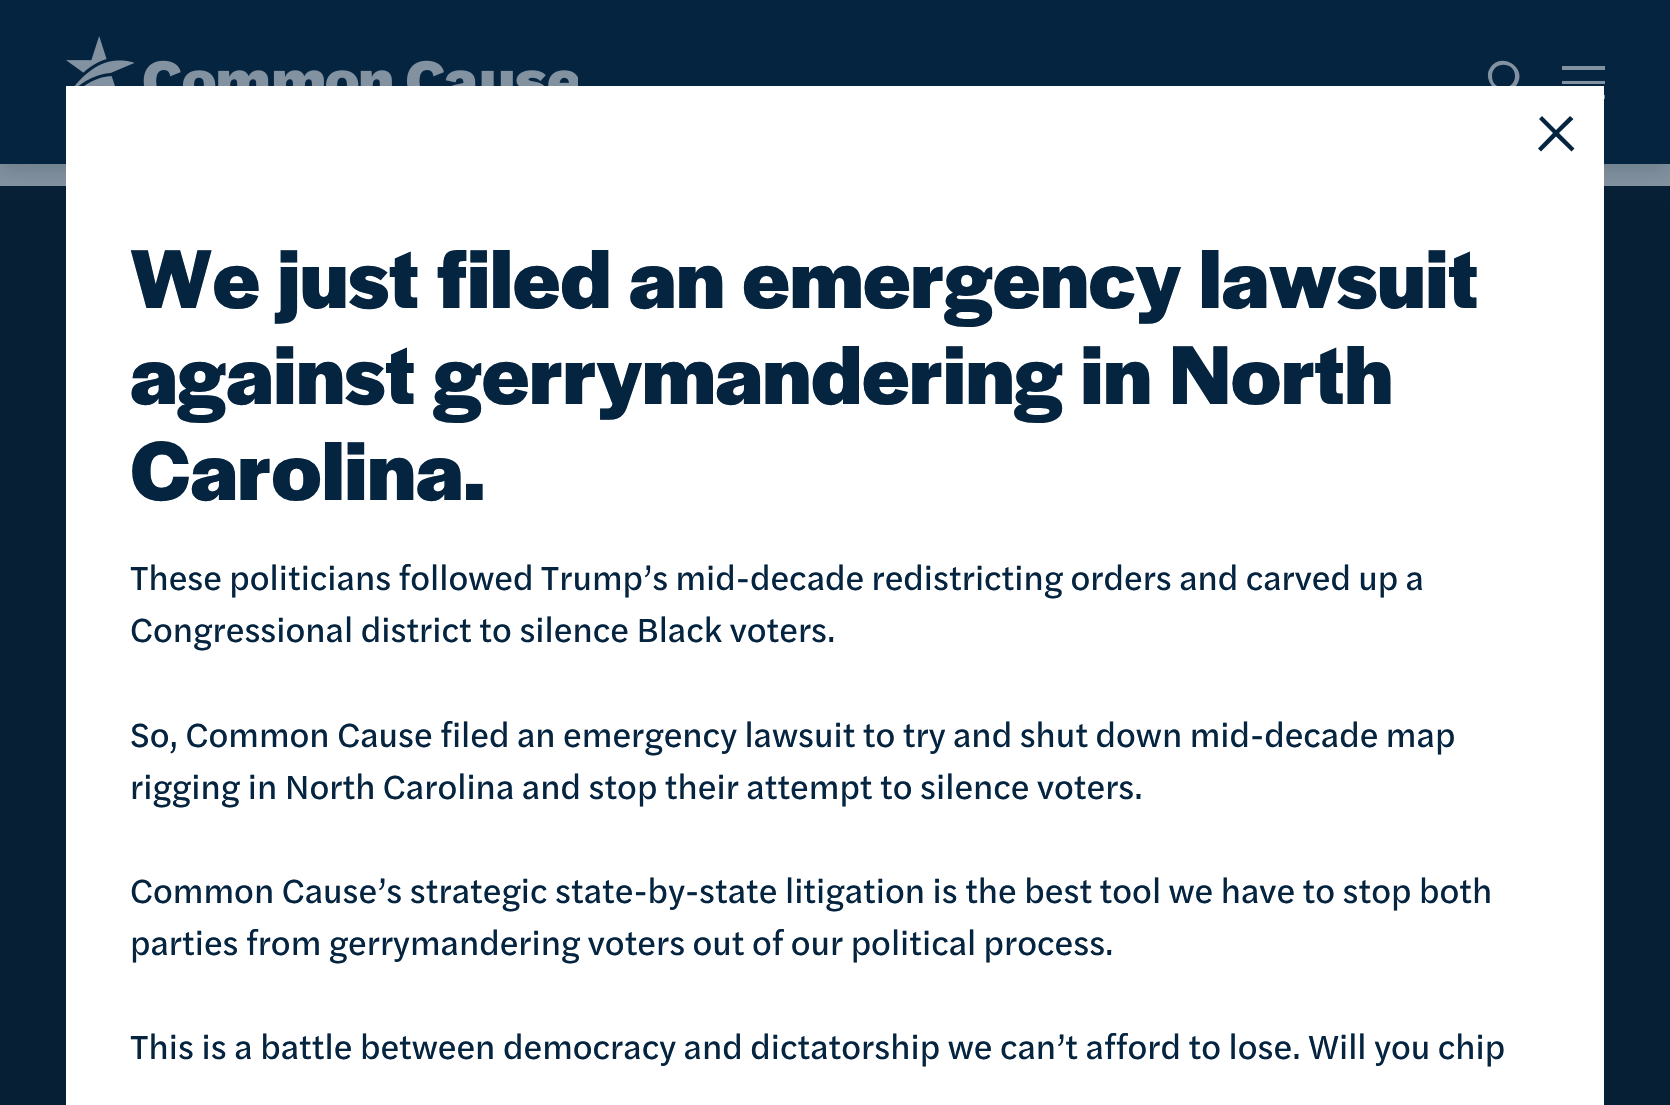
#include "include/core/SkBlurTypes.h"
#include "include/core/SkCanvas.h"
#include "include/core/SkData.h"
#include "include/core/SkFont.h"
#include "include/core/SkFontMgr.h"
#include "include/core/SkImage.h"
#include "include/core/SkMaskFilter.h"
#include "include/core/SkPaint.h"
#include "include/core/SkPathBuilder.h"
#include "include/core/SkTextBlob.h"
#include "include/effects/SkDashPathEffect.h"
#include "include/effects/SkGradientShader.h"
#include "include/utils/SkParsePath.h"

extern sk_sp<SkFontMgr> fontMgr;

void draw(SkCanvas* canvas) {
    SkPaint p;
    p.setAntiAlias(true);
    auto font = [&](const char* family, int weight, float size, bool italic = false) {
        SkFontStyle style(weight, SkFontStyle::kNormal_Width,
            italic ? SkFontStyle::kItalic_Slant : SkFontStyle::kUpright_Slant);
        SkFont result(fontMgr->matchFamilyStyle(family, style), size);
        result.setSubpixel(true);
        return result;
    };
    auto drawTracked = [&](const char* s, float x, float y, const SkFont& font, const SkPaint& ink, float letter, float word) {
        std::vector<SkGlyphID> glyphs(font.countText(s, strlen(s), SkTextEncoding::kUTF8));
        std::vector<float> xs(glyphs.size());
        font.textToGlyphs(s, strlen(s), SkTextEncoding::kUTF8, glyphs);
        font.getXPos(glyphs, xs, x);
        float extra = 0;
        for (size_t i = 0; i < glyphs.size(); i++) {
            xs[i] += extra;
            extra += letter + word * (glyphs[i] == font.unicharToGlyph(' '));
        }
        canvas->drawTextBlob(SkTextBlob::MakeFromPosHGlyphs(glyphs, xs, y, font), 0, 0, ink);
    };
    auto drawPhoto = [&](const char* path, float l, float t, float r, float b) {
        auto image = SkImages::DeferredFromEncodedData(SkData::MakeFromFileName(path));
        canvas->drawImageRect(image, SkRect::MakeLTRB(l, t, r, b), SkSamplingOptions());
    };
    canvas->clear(0xFF8292A0);
    p.setColor(0xFF061F35);
    canvas->drawRect(SkRect::MakeLTRB(0, 186, 1670, 1105), p);
    p.setColor(0x33031220);
    p.setMaskFilter(SkMaskFilter::MakeBlur(kNormal_SkBlurStyle, 11));
    canvas->drawRect(SkRect::MakeLTRB(0, -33, 1670, 168), p);
    p.setMaskFilter(nullptr);
    p.setColor(0xFF052440);
    canvas->drawRect(SkRect::MakeLTRB(0, 0, 1670, 164), p);
    drawPhoto("media/1.png", 66, 36, 578, 86);
    p.setColor(0xFF8292A0);
    canvas->drawPath(SkPathBuilder().moveTo(1531, 101).lineTo(1516, 86).cubicTo(1530, 68, 1499, 49, 1489, 70).cubicTo(1487, 74, 1488, 79, 1490, 83).cubicTo(1495, 92, 1505, 94, 1513, 88).lineTo(1529, 104).close().moveTo(1492, 76).cubicTo(1492, 61, 1515, 61, 1515, 76).cubicTo(1515, 91, 1492, 92, 1492, 76).close().detach(), p);
    canvas->drawPath(SkPathBuilder().moveTo(1605, 66).lineTo(1605, 70).lineTo(1562, 70).lineTo(1562, 66).close().moveTo(1562, 84).lineTo(1605, 84).lineTo(1605, 81).lineTo(1562, 81).close().moveTo(1562, 99).lineTo(1605, 99).lineTo(1605, 95).lineTo(1562, 95).close().detach(), p);
    p.setColor(0xFFFFFFFF);
    canvas->drawRect(SkRect::MakeLTRB(66, 86, 1604, 1105), p);
    p.setColor(0xFF052440);
    canvas->drawPath(SkPathBuilder().moveTo(1571.5f, 151.5f).lineTo(1556, 136.5f).lineTo(1541, 151.5f).lineTo(1538, 148.5f).lineTo(1553, 133).lineTo(1539, 119).lineTo(1542, 116).lineTo(1556, 130).lineTo(1570, 116).lineTo(1573.5f, 119).lineTo(1559, 133).lineTo(1574.5f, 148.5f).close().detach(), p);
    auto font1 = font("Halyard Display", 700, 87);
    {
        const struct { const char* s; float x, y; } items[] = {
            {"We just filed an emergency lawsuit", 130, 308},
            {"against gerrymandering in North", 130, 404},
            {"Carolina.", 130, 500},
        };
        for (auto [s, x, y] : items) {
            canvas->drawString(s, x, y, font1, p);
        }
    }
    auto font2 = font("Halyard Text", 400, 34.8f);
    drawTracked("These politicians followed Trump’s mid-decade redistricting orders and carved up a", 130, 590, font2, p, 0, -0.25f);
    canvas->drawString("Congressional district to silence Black voters.", 130, 642, font2, p);
    {
        const struct { const char* s; float x, y; } items[] = {
            {"So, Common Cause filed an emergency lawsuit to try and shut down mid-decade map", 130, 747},
            {"rigging in North Carolina and stop their attempt to silence voters.", 130, 799},
            {"Common Cause’s strategic state-by-state litigation is the best tool we have to stop both", 130, 903},
        };
        for (auto [s, x, y] : items) {
            drawTracked(s, x, y, font2, p, 0, -0.1f);
        }
    }
    drawTracked("parties from gerrymandering voters out of our political process.", 130, 955, font2, p, 0, -0.25f);
    canvas->drawString("This is a battle between democracy and dictatorship we can’t afford to lose. Will you chip", 130, 1059, font2, p);
}
